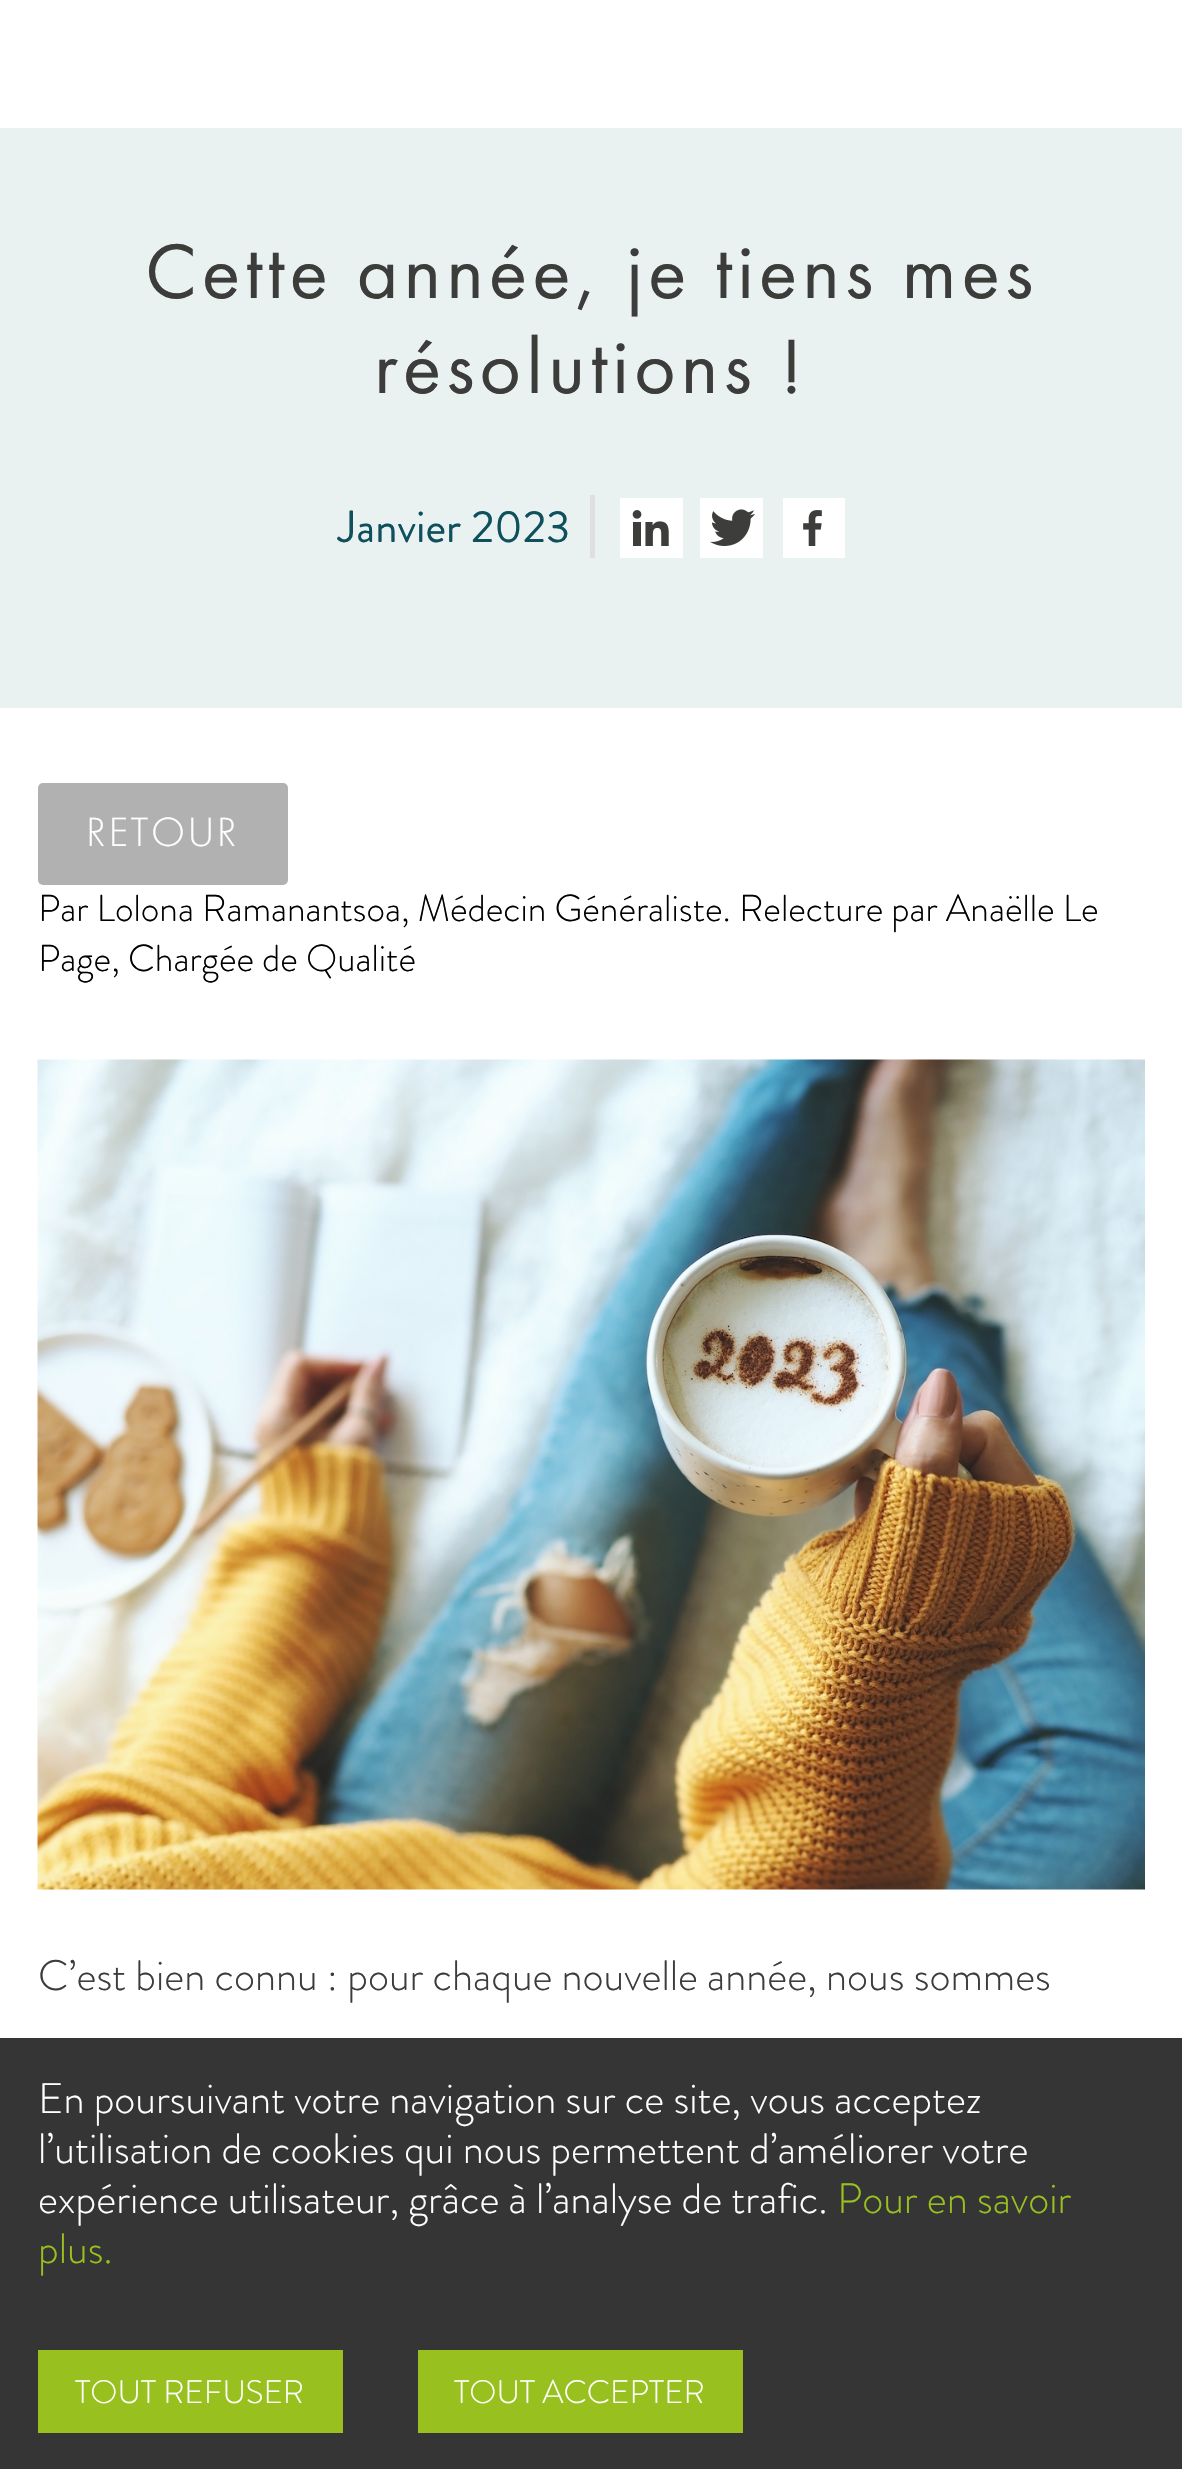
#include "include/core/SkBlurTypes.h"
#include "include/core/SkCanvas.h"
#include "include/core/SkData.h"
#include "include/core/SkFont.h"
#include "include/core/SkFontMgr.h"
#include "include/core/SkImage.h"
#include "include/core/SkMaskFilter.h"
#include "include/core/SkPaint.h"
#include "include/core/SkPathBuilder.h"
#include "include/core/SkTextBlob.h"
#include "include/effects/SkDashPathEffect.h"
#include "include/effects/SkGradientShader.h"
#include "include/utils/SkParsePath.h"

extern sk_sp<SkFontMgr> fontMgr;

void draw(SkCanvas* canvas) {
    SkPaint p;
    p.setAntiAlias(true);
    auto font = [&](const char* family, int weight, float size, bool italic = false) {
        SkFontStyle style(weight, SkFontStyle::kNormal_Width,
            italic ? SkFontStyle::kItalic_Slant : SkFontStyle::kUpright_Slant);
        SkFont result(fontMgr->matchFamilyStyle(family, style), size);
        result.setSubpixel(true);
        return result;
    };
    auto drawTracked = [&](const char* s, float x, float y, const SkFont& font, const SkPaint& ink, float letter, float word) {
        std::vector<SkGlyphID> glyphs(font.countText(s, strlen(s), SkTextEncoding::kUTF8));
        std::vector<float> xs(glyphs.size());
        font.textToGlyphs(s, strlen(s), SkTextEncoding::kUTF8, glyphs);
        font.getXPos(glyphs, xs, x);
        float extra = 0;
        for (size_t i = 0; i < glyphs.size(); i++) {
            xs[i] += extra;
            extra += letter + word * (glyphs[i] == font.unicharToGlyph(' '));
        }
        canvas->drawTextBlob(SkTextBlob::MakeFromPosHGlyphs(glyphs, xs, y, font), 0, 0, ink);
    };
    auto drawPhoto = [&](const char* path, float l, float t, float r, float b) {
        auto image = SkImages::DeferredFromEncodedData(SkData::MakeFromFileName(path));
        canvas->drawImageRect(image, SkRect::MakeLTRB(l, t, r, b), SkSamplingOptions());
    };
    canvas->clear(0xFFFFFFFF);
    p.setColor(0xFFEAF1F1);
    canvas->drawRect(SkRect::MakeLTRB(0, 128, 1182, 708), p);
    auto font1 = font("Futura PT", 400, 80);
    p.setColor(0xFF3C3C3B);
    drawTracked("Cette année, je tiens mes", 145, 298, font1, p, 5, 0);
    drawTracked("résolutions !", 374, 393, font1, p, 5, 0);
    auto font2 = font("Brandon Grotesque", 400, 45);
    p.setColor(0xFF0F505D);
    canvas->drawString("Janvier 2023", 338, 542, font2, p);
    p.setColor(0xFFDFDFDF);
    canvas->drawRect(SkRect::MakeLTRB(590, 495, 595, 558), p);
    p.setColor(0xFFFFFFFF);
    canvas->drawRect(SkRect::MakeLTRB(620, 498, 683, 558), p);
    drawPhoto("media/1.png", 632, 510, 669, 546);
    canvas->drawRect(SkRect::MakeLTRB(700, 498, 763, 558), p);
    drawPhoto("media/2.png", 710, 509, 755, 546);
    canvas->drawRect(SkRect::MakeLTRB(783, 498, 845, 558), p);
    drawPhoto("media/3.png", 803, 510, 822, 546);
    p.setColor(0xFFB1B1B1);
    canvas->drawRoundRect(SkRect::MakeLTRB(38, 783, 288, 885), 5, 5, p);
    auto font3 = font("Futura PT", 300, 42.5f);
    p.setColor(0xFFFFFFFF);
    drawTracked("RETOUR", 86, 846, font3, p, 2.5f, 0);
    auto font4 = font("Brandon Grotesque", 300, 37.5f);
    p.setColor(0xFF000000);
    canvas->drawString("Par Lolona Ramanantsoa, Médecin Généraliste. Relecture par Anaëlle Le", 38, 921, font4, p);
    canvas->drawString("Page, Chargée de Qualité", 38, 971, font4, p);
    drawPhoto("media/4.png", 37, 1059, 1145, 1890);
    auto font5 = font("Brandon Grotesque", 300, 42.5f);
    p.setColor(0xFF3C3C3B);
    canvas->drawString("C’est bien connu : pour chaque nouvelle année, nous sommes", 38, 1990, font5, p);
    p.setColor(0xFF353535);
    canvas->drawRect(SkRect::MakeLTRB(0, 2038, 1182, 2469), p);
    p.setColor(0xFFFFFFFF);
    {
        const struct { const char* s; float x, y; } items[] = {
            {"En poursuivant votre navigation sur ce site, vous acceptez", 38, 2113},
            {"l’utilisation de cookies qui nous permettent d’améliorer votre", 38, 2163},
            {"expérience utilisateur, grâce à l’analyse de trafic.", 38, 2213},
        };
        for (auto [s, x, y] : items) {
            canvas->drawString(s, x, y, font5, p);
        }
    }
    p.setColor(0xFF98C01F);
    canvas->drawString("Pour en savoir", 837, 2213, font5, p);
    canvas->drawString("plus.", 38, 2263, font5, p);
    canvas->drawRect(SkRect::MakeLTRB(38, 2350, 343, 2433), p);
    auto font6 = font("Brandon Grotesque", 300, 32.5f);
    p.setColor(0xFFFFFFFF);
    canvas->drawString("TOUT REFUSER", 75, 2403, font6, p);
    p.setColor(0xFF98C01F);
    canvas->drawRect(SkRect::MakeLTRB(418, 2350, 743, 2433), p);
    p.setColor(0xFFFFFFFF);
    canvas->drawString("TOUT ACCEPTER", 454, 2403, font6, p);
}
